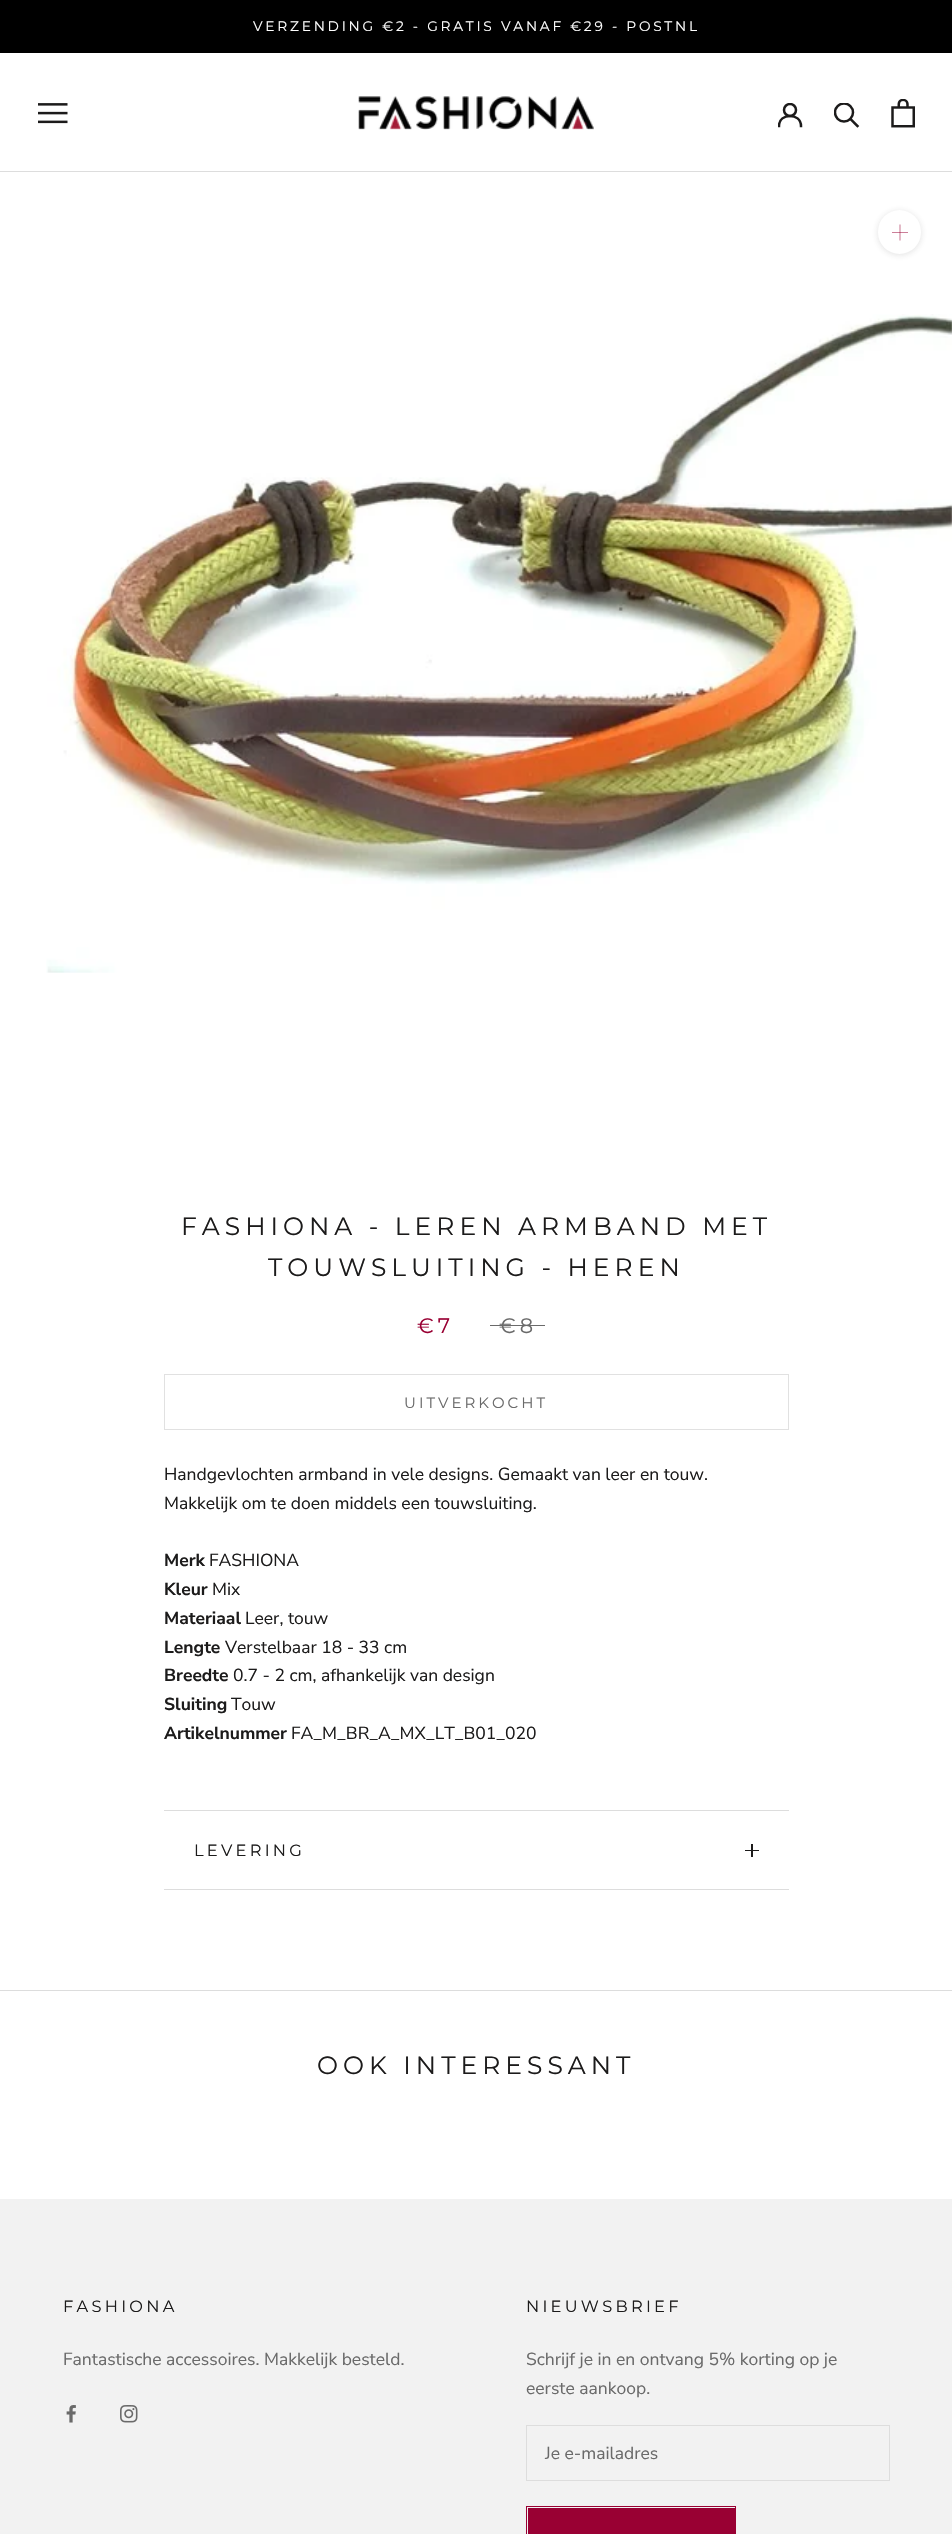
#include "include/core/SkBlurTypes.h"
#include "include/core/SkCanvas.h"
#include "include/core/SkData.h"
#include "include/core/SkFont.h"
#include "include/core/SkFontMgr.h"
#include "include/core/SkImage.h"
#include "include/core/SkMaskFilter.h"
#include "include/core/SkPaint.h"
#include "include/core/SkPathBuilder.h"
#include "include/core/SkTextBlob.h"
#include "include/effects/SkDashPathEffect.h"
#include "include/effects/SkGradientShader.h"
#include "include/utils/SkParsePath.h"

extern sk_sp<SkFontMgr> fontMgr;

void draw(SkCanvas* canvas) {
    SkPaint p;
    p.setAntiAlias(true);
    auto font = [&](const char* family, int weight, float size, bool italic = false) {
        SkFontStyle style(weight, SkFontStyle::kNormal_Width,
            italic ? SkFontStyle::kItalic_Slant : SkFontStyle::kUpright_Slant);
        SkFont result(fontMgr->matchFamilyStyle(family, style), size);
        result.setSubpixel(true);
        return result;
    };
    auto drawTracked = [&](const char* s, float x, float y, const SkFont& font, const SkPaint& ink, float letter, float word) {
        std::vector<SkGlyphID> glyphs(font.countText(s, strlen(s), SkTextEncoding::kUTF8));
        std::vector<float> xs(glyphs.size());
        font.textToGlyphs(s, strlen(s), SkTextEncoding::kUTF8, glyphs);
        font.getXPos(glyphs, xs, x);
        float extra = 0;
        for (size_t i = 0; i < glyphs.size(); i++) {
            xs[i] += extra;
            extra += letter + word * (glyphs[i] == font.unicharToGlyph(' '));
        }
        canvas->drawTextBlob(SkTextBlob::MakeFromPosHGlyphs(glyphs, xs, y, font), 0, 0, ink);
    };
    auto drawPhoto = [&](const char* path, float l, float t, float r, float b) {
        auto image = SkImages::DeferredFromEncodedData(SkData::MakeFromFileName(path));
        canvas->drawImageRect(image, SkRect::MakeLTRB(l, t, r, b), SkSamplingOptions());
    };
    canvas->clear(0xFFFFFFFF);
    p.setColor(0xFF000000);
    canvas->drawRect(SkRect::MakeLTRB(0, 0, 952, 53), p);
    auto font1 = font("Montserrat", 400, 13.75f);
    p.setColor(0xFFFFFFFF);
    drawTracked("VERZENDING €2 - GRATIS VANAF €29 - POSTNL", 253, 31, font1, p, 2.75f, 0);
    p.setColor(0xFFDDDDDD);
    canvas->drawRect(SkRect::MakeLTRB(0, 171, 952, 172), p);
    drawPhoto("media/1.png", 38, 103, 68, 124);
    drawPhoto("media/2.png", 358, 96, 594, 130);
    canvas->save();
    canvas->clipRect(SkRect::MakeLTRB(778, 103, 803, 128));
    p.setStyle(SkPaint::kStroke_Style);
    p.setStrokeWidth(2.5f);
    p.setStrokeCap(SkPaint::kSquare_Cap);
    p.setColor(0xFF1C1B1B);
    canvas->drawPath(SkPathBuilder().moveTo(779, 126).cubicTo(779, 112.5f, 801, 112.5f, 801, 126).detach(), p);
    p.setStrokeCap(SkPaint::kButt_Cap);
    canvas->drawCircle(790, 110, 6, p);
    canvas->restore();
    p.setStrokeCap(SkPaint::kSquare_Cap);
    canvas->drawPath(SkPathBuilder().moveTo(857.5f, 126).lineTo(850.5f, 119).detach(), p);
    canvas->save();
    canvas->clipRect(SkRect::MakeLTRB(834, 103, 860, 129));
    p.setStrokeCap(SkPaint::kButt_Cap);
    canvas->drawCircle(844, 112.5f, 9, p);
    canvas->restore();
    drawPhoto("media/3.png", 891, 99, 915, 128);
    p.setStyle(SkPaint::kFill_Style);
    p.setColor(0x26363636);
    p.setMaskFilter(SkMaskFilter::MakeBlur(kNormal_SkBlurStyle, 3));
    canvas->drawRoundRect(SkRect::MakeLTRB(878, 211, 921, 255), 21.5f, 21.5f, p);
    p.setMaskFilter(nullptr);
    p.setColor(0xFFFFFFFF);
    canvas->drawRoundRect(SkRect::MakeLTRB(878, 210, 921, 254), 21.5f, 21.5f, p);
    p.setStyle(SkPaint::kStroke_Style);
    p.setStrokeWidth(1.1f);
    p.setStrokeCap(SkPaint::kSquare_Cap);
    p.setColor(0xFFCC8099);
    canvas->drawPath(SkPathBuilder().moveTo(900, 225).lineTo(900, 240).detach(), p);
    p.setStyle(SkPaint::kFill_Style);
    p.setColor(0x80990033);
    canvas->drawRect(SkRect::MakeLTRB(892, 232, 908, 233), p);
    drawPhoto("media/4.png", 46, 314, 952, 973);
    auto font2 = font("Montserrat", 400, 25);
    p.setColor(0xFF1C1B1B);
    drawTracked("FASHIONA - LEREN ARMBAND MET", 181, 1235, font2, p, 5, 0);
    drawTracked("TOUWSLUITING - HEREN", 268, 1276, font2, p, 5, 0);
    auto font3 = font("Montserrat", 400, 21);
    p.setColor(0xFF990033);
    drawTracked("€7", 417, 1333, font3, p, 4, 0);
    p.setColor(0xFF6A6A6A);
    drawTracked("€8", 499, 1333, font3, p, 4, 0);
    canvas->drawRect(SkRect::MakeLTRB(490, 1325, 545, 1326), p);
    p.setStyle(SkPaint::kStroke_Style);
    p.setStrokeWidth(1);
    p.setStrokeCap(SkPaint::kButt_Cap);
    p.setColor(0xFFE1E1E1);
    canvas->drawRect(SkRect::MakeLTRB(164.5f, 1374.5f, 788.5f, 1429.5f), p);
    auto font4 = font("Montserrat", 400, 15);
    p.setStyle(SkPaint::kFill_Style);
    p.setColor(0xFF6A6A6A);
    drawTracked("UITVERKOCHT", 404, 1408, font4, p, 3, 0);
    auto font5 = font("Nunito Sans", 400, 17.5f);
    p.setColor(0xFF1C1B1B);
    canvas->drawString("Handgevlochten armband in vele designs. Gemaakt van leer en touw.", 164, 1480, font5, p);
    canvas->drawString("Makkelijk om te doen middels een touwsluiting.", 164, 1509, font5, p);
    auto font6 = font("Nunito Sans", 700, 17.5f);
    canvas->drawString("Merk", 164, 1566, font6, p);
    canvas->drawString("FASHIONA", 209, 1566, font5, p);
    canvas->drawString("Kleur", 164, 1595, font6, p);
    canvas->drawString("Mix", 212, 1595, font5, p);
    canvas->drawString("Materiaal", 164, 1624, font6, p);
    canvas->drawString("Leer, touw", 245, 1624, font5, p);
    canvas->drawString("Lengte", 164, 1653, font6, p);
    canvas->drawString("Verstelbaar 18 - 33 cm", 225, 1653, font5, p);
    canvas->drawString("Breedte", 164, 1681, font6, p);
    canvas->drawString("0.7 - 2 cm, afhankelijk van design", 233, 1681, font5, p);
    canvas->drawString("Sluiting", 164, 1710, font6, p);
    canvas->drawString("Touw", 231, 1710, font5, p);
    canvas->drawString("Artikelnummer", 164, 1739, font6, p);
    canvas->drawString("FA_M_BR_A_MX_LT_B01_020", 291, 1739, font5, p);
    p.setColor(0xFFDDDDDD);
    canvas->drawRect(SkRect::MakeLTRB(164, 1810, 789, 1811), p);
    canvas->drawRect(SkRect::MakeLTRB(164, 1889, 789, 1890), p);
    auto font7 = font("Montserrat", 400, 16.25f);
    p.setColor(0xFF1C1B1B);
    drawTracked("LEVERING", 194, 1856, font7, p, 3.25f, 0);
    {
        const struct { float l, t, r, b; SkColor color; } items[] = {
            {751, 1844, 753, 1857, 0xFF1C1B1B},
            {745, 1850, 759, 1851, 0xFF1C1B1B},
            {0, 1990, 952, 1991, 0xFFDDDDDD},
        };
        for (auto [l, t, r, b, color] : items) {
            p.setColor(color);
            canvas->drawRect(SkRect::MakeLTRB(l, t, r, b), p);
        }
    }
    p.setColor(0xFF1C1B1B);
    drawTracked("OOK INTERESSANT", 317, 2074, font2, p, 5, 0);
    p.setColor(0xFFF2F2F2);
    canvas->drawRect(SkRect::MakeLTRB(0, 2199, 952, 2534), p);
    p.setColor(0xFF1C1B1B);
    drawTracked("FASHIONA", 63, 2312, font7, p, 3.25f, 0);
    p.setColor(0xFF6A6A6A);
    canvas->drawString("Fantastische accessoires. Makkelijk besteld.", 63, 2365, font5, p);
    drawPhoto("media/5.png", 66, 2405, 76, 2423);
    drawPhoto("media/6.png", 120, 2405, 138, 2423);
    p.setColor(0xFF1C1B1B);
    drawTracked("NIEUWSBRIEF", 526, 2312, font7, p, 3.25f, 0);
    p.setColor(0xFF6A6A6A);
    canvas->drawString("Schrijf je in en ontvang 5% korting op je", 526, 2365, font5, p);
    canvas->drawString("eerste aankoop.", 526, 2394, font5, p);
    p.setStyle(SkPaint::kStroke_Style);
    p.setColor(0xFFDDDDDD);
    canvas->drawRect(SkRect::MakeLTRB(526.5f, 2425.5f, 889.5f, 2480.5f), p);
    p.setStyle(SkPaint::kFill_Style);
    p.setColor(0xFF6A6A6A);
    canvas->drawString("Je e-mailadres", 545, 2459, font5, p);
    p.setStyle(SkPaint::kStroke_Style);
    p.setColor(0xFF990033);
    canvas->drawRect(SkRect::MakeLTRB(526.5f, 2506.5f, 735.5f, 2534.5f), p);
    p.setStyle(SkPaint::kFill_Style);
    canvas->drawRect(SkRect::MakeLTRB(528, 2508, 735, 2534), p);
}
